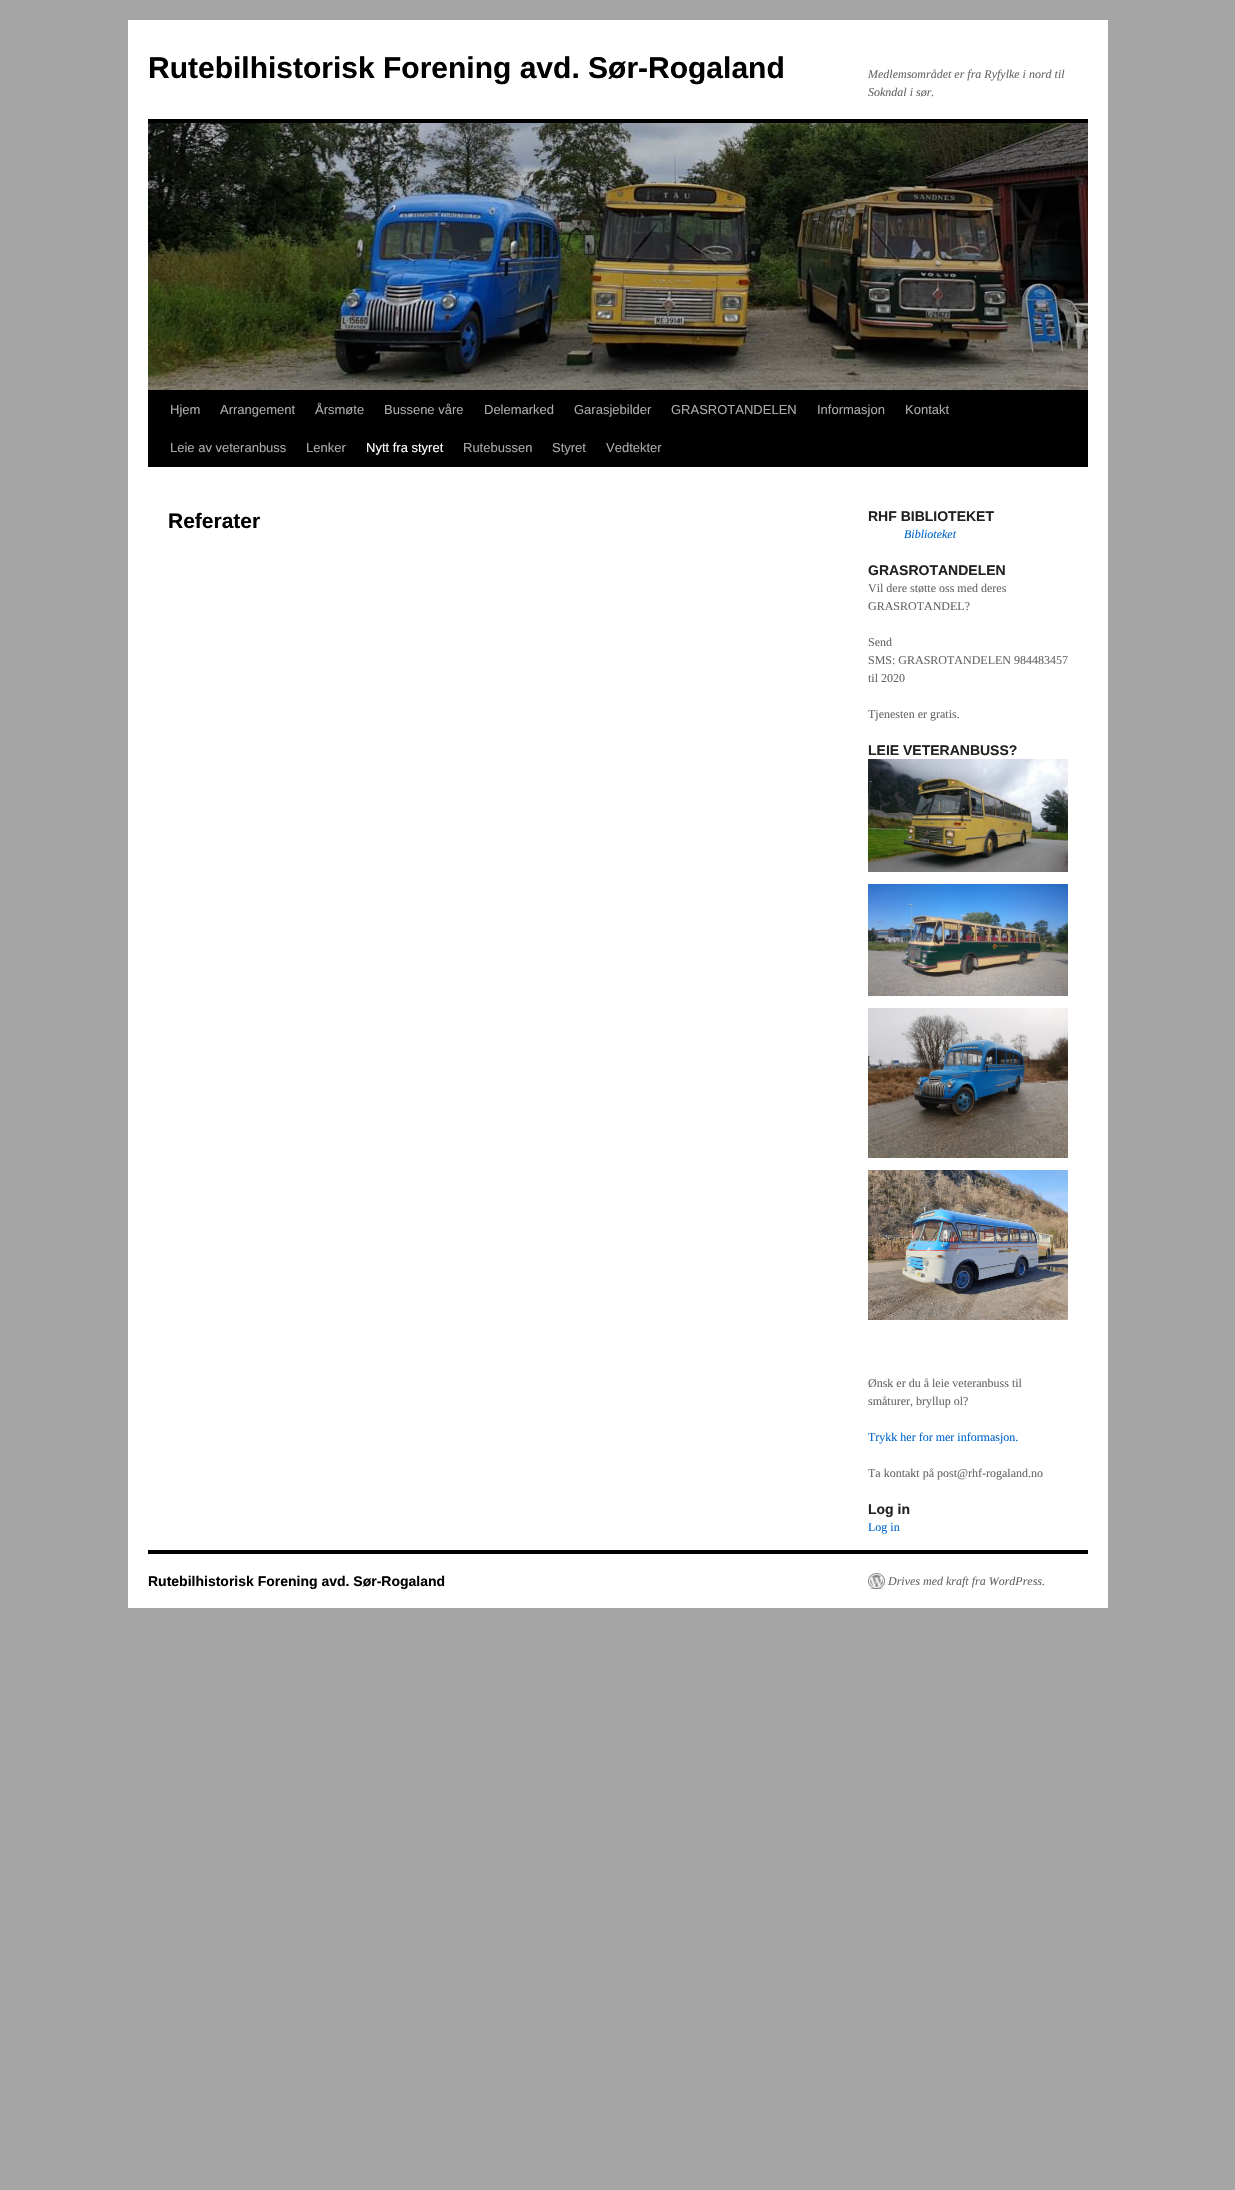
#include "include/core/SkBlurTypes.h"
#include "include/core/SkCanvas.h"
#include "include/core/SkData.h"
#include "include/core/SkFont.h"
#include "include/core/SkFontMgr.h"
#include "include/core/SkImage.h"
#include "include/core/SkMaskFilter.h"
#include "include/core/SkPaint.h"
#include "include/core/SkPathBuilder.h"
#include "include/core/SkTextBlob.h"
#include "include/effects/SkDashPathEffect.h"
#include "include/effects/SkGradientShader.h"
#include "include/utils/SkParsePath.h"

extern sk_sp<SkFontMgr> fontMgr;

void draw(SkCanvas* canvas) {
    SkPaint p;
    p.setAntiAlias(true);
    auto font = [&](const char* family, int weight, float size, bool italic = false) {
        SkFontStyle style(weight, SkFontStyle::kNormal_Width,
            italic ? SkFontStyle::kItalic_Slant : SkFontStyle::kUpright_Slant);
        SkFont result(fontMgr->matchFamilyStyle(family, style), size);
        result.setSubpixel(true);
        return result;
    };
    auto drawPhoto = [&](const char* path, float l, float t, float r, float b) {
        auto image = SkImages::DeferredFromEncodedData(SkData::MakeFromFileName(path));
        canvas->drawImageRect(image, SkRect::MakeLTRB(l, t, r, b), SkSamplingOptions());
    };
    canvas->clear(0xFFA5A5A5);
    p.setColor(0xFFFFFFFF);
    canvas->drawRect(SkRect::MakeLTRB(128, 20, 1108, 1608), p);
    auto font1 = font("Liberation Sans", 700, 30);
    p.setColor(0xFF000000);
    canvas->drawString("Rutebilhistorisk Forening avd. Sør-Rogaland", 148, 78, font1, p);
    auto font2 = font("Liberation Serif", 400, 12, true);
    p.setColor(0xFF666666);
    canvas->drawString("Medlemsområdet er fra Ryfylke i nord til", 868, 78, font2, p);
    canvas->drawString("Sokndal i sør.", 868, 96, font2, p);
    p.setColor(0xFF000000);
    canvas->drawRect(SkRect::MakeLTRB(148, 119, 1088, 123), p);
    canvas->drawRect(SkRect::MakeLTRB(148, 390, 1088, 467), p);
    drawPhoto("media/1.png", 148, 123, 1088, 390);
    auto font3 = font("Liberation Sans", 400, 13);
    p.setColor(0xFFAAAAAA);
    {
        const struct { const char* s; float x, y; } items[] = {
            {"Hjem", 170, 414},
            {"Arrangement", 220, 414},
            {"Årsmøte", 315, 414},
            {"Bussene våre", 384, 414},
            {"Delemarked", 484, 414},
            {"Garasjebilder", 574, 414},
            {"GRASROTANDELEN", 671, 414},
            {"Informasjon", 817, 414},
            {"Kontakt", 905, 414},
            {"Leie av veteranbuss", 170, 452},
            {"Lenker", 306, 452},
        };
        for (auto [s, x, y] : items) {
            canvas->drawString(s, x, y, font3, p);
        }
    }
    p.setColor(0xFFFFFFFF);
    canvas->drawString("Nytt fra styret", 366, 452, font3, p);
    p.setColor(0xFFAAAAAA);
    {
        const struct { const char* s; float x, y; } items[] = {
            {"Rutebussen", 463, 452},
            {"Styret", 552, 452},
            {"Vedtekter", 606, 452},
        };
        for (auto [s, x, y] : items) {
            canvas->drawString(s, x, y, font3, p);
        }
    }
    auto font4 = font("Liberation Sans", 700, 21);
    p.setColor(0xFF000000);
    canvas->drawString("Referater", 168, 528, font4, p);
    auto font5 = font("Liberation Sans", 700, 14);
    p.setColor(0xFF222222);
    canvas->drawString("RHF BIBLIOTEKET", 868, 521, font5, p);
    p.setColor(0xFF0066CC);
    canvas->drawString("Biblioteket", 904, 538, font2, p);
    p.setColor(0xFF222222);
    canvas->drawString("GRASROTANDELEN", 868, 575, font5, p);
    auto font6 = font("Liberation Serif", 400, 12);
    p.setColor(0xFF666666);
    {
        const struct { const char* s; float x, y; } items[] = {
            {"Vil dere støtte oss med deres", 868, 592},
            {"GRASROTANDEL?", 868, 610},
            {"Send", 868, 646},
            {"SMS: GRASROTANDELEN 984483457", 868, 664},
            {"til 2020", 868, 682},
            {"Tjenesten er gratis.", 868, 718},
        };
        for (auto [s, x, y] : items) {
            canvas->drawString(s, x, y, font6, p);
        }
    }
    p.setColor(0xFF222222);
    canvas->drawString("LEIE VETERANBUSS?", 868, 755, font5, p);
    drawPhoto("media/2.png", 868, 759, 1068, 872);
    drawPhoto("media/3.png", 868, 884, 1068, 996);
    drawPhoto("media/4.png", 868, 1008, 1068, 1158);
    drawPhoto("media/5.png", 868, 1170, 1068, 1320);
    p.setColor(0xFF666666);
    canvas->drawString("Ønsk er du å leie veteranbuss til", 868, 1387, font6, p);
    canvas->drawString("småturer, bryllup ol?", 868, 1405, font6, p);
    p.setColor(0xFF0066CC);
    canvas->drawString("Trykk her for mer informasjon.", 868, 1441, font6, p);
    p.setColor(0xFF666666);
    canvas->drawString("Ta kontakt på post@rhf-rogaland.no", 868, 1477, font6, p);
    p.setColor(0xFF222222);
    canvas->drawString("Log in", 868, 1514, font5, p);
    p.setColor(0xFF0066CC);
    canvas->drawString("Log in", 868, 1531, font6, p);
    p.setColor(0xFF000000);
    canvas->drawRect(SkRect::MakeLTRB(148, 1550, 1088, 1554), p);
    canvas->drawString("Rutebilhistorisk Forening avd. Sør-Rogaland", 148, 1586, font5, p);
    drawPhoto("media/6.png", 868, 1573, 885, 1589);
    p.setColor(0xFF666666);
    canvas->drawString("Drives med kraft fra WordPress.", 888, 1585, font2, p);
}
